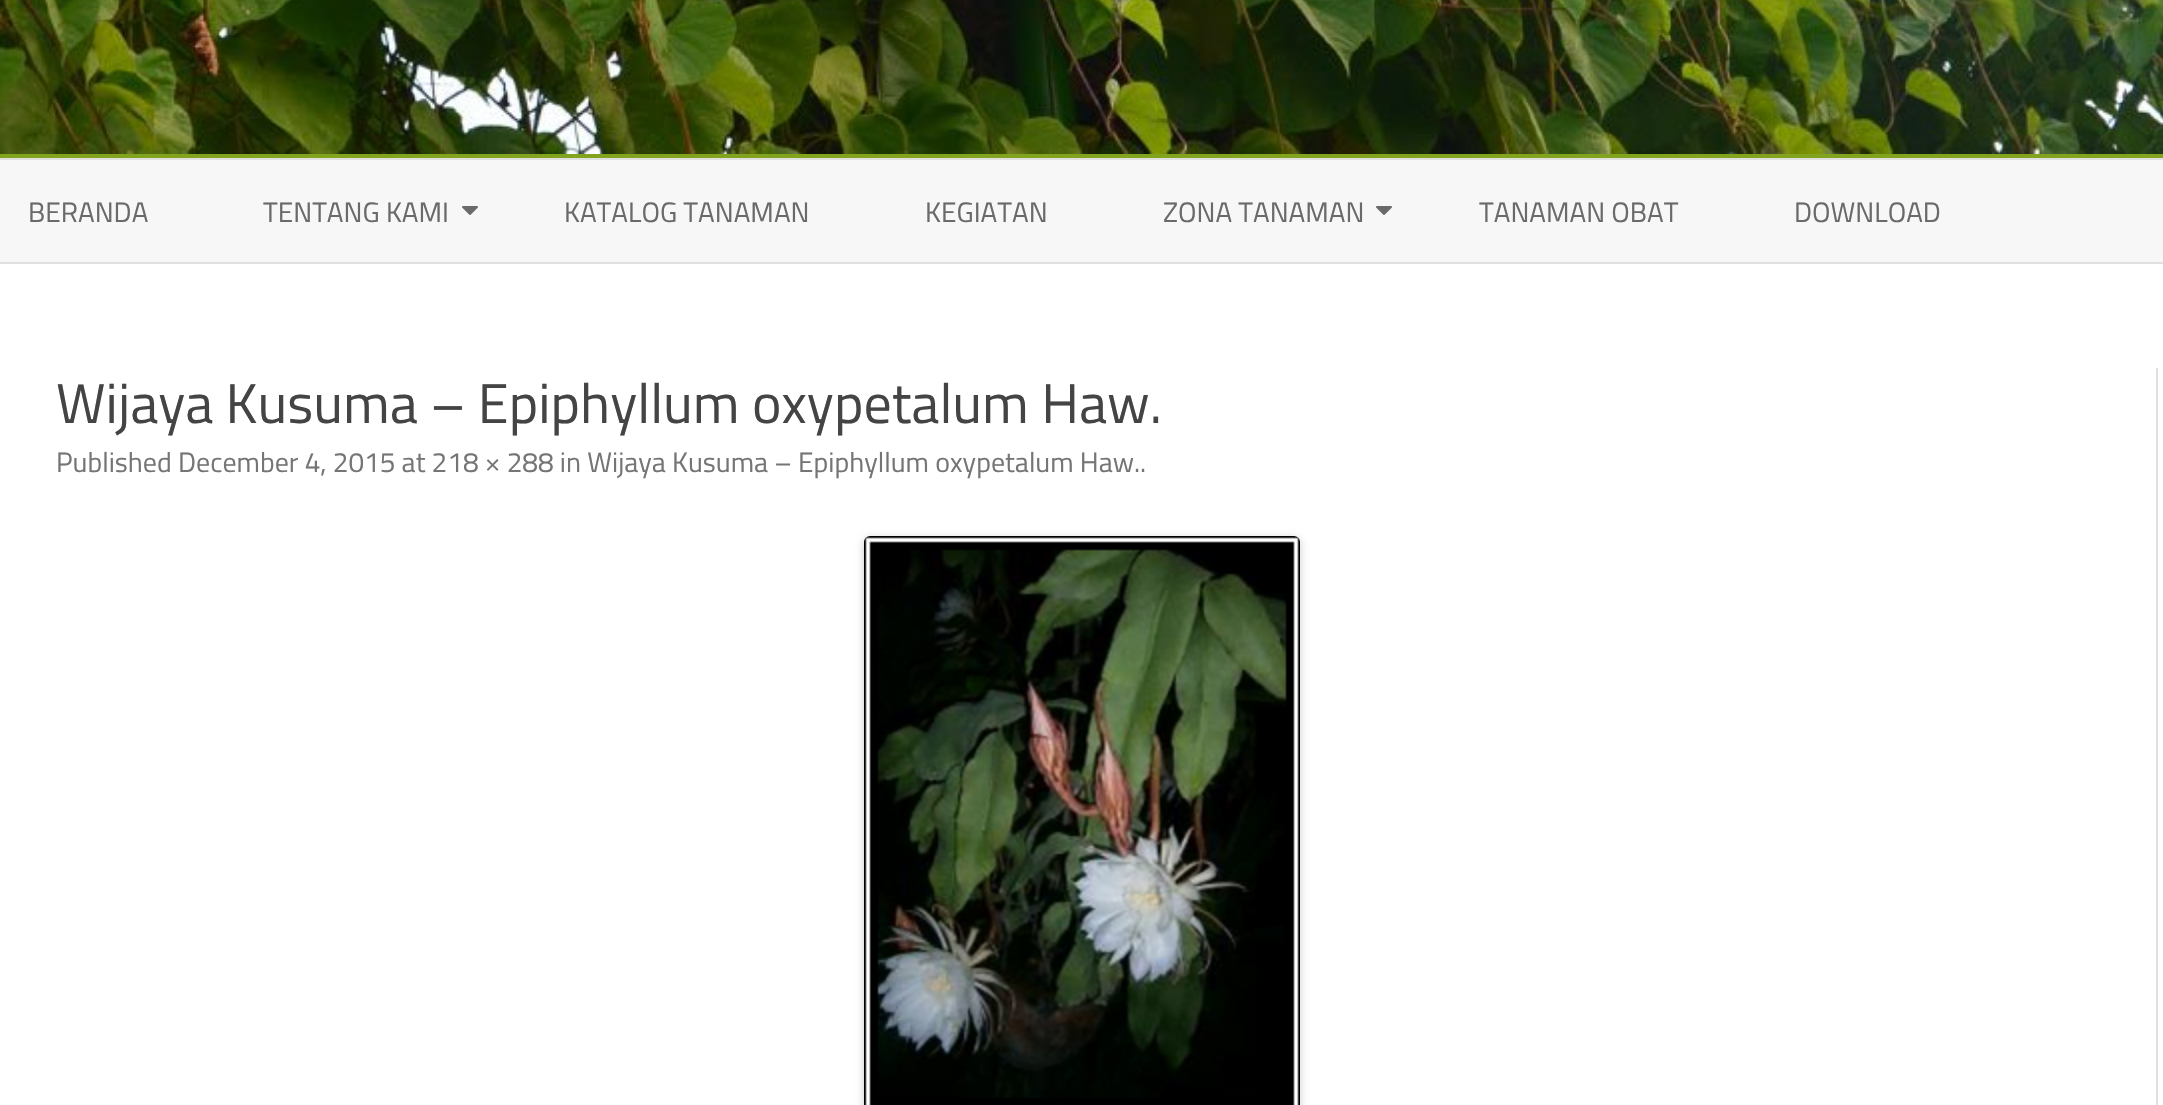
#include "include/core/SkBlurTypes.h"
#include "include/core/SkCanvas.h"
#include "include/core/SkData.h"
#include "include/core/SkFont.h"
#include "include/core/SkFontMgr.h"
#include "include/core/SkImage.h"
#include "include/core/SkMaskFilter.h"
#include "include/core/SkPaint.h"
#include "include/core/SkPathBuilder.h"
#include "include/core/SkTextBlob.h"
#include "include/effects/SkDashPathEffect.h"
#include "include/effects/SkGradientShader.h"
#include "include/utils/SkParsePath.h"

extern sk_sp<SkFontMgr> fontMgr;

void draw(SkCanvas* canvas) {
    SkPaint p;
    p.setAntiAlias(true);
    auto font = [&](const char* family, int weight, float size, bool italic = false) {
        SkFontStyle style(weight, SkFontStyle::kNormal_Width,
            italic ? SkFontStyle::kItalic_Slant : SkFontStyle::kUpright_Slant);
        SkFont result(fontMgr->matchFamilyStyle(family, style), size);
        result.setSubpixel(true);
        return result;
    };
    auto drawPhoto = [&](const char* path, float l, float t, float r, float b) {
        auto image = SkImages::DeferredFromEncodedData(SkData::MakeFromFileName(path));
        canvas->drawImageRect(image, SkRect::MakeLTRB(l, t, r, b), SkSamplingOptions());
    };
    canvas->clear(0xFFFFFFFF);
    p.setColor(0xFF82A31D);
    canvas->drawRect(SkRect::MakeLTRB(0, 154, 2163, 158), p);
    drawPhoto("media/1.png", 0, 0, 2163, 154);
    {
        const struct { float l, t, r, b; SkColor color; } items[] = {
            {0, 160, 2163, 262, 0xFFF7F7F7},
            {0, 158, 2163, 160, 0xFFE0E0E0},
            {0, 262, 2163, 264, 0xFFE0E0E0},
        };
        for (auto [l, t, r, b, color] : items) {
            p.setColor(color);
            canvas->drawRect(SkRect::MakeLTRB(l, t, r, b), p);
        }
    }
    auto font1 = font("Titillium Web", 400, 28);
    p.setColor(0xFF6A6A6A);
    canvas->drawString("BERANDA", 28, 222, font1, p);
    canvas->drawString("TENTANG KAMI", 263, 222, font1, p);
    drawPhoto("media/2.png", 462, 206, 478, 215);
    {
        const struct { const char* s; float x, y; } items[] = {
            {"KATALOG TANAMAN", 564, 222},
            {"KEGIATAN", 925, 222},
            {"ZONA TANAMAN", 1163, 222},
        };
        for (auto [s, x, y] : items) {
            canvas->drawString(s, x, y, font1, p);
        }
    }
    drawPhoto("media/2.png", 1376, 206, 1392, 215);
    canvas->drawString("TANAMAN OBAT", 1479, 222, font1, p);
    canvas->drawString("DOWNLOAD", 1794, 222, font1, p);
    p.setColor(0xFFE0E0E0);
    canvas->drawRect(SkRect::MakeLTRB(2156, 368, 2158, 1105), p);
    auto font2 = font("Titillium Web", 400, 56);
    p.setColor(0xFF444444);
    canvas->drawString("Wijaya Kusuma – Epiphyllum oxypetalum Haw.", 56, 423, font2, p);
    p.setColor(0xFF757575);
    canvas->drawString("Published December 4, 2015 at 218 × 288 in Wijaya Kusuma – Epiphyllum oxypetalum Haw..", 56, 472, font1, p);
    canvas->save();
    canvas->clipPath(SkPathBuilder(SkPathFillType::kEvenOdd).moveTo(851, 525).lineTo(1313, 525).lineTo(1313, 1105).lineTo(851, 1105).close().moveTo(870, 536).lineTo(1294, 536).cubicTo(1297.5f, 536, 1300, 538.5f, 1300, 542).lineTo(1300, 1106).cubicTo(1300, 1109.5f, 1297.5f, 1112, 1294, 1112).lineTo(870, 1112).cubicTo(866.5f, 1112, 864, 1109.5f, 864, 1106).lineTo(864, 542).cubicTo(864, 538.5f, 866.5f, 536, 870, 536).close().detach(), true);
    p.setColor(0x33000000);
    p.setMaskFilter(SkMaskFilter::MakeBlur(kNormal_SkBlurStyle, 4));
    canvas->drawRoundRect(SkRect::MakeLTRB(864, 538, 1300, 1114), 6, 6, p);
    p.setMaskFilter(nullptr);
    canvas->restore();
    drawPhoto("media/3.png", 864, 536, 1300, 1105);
}
